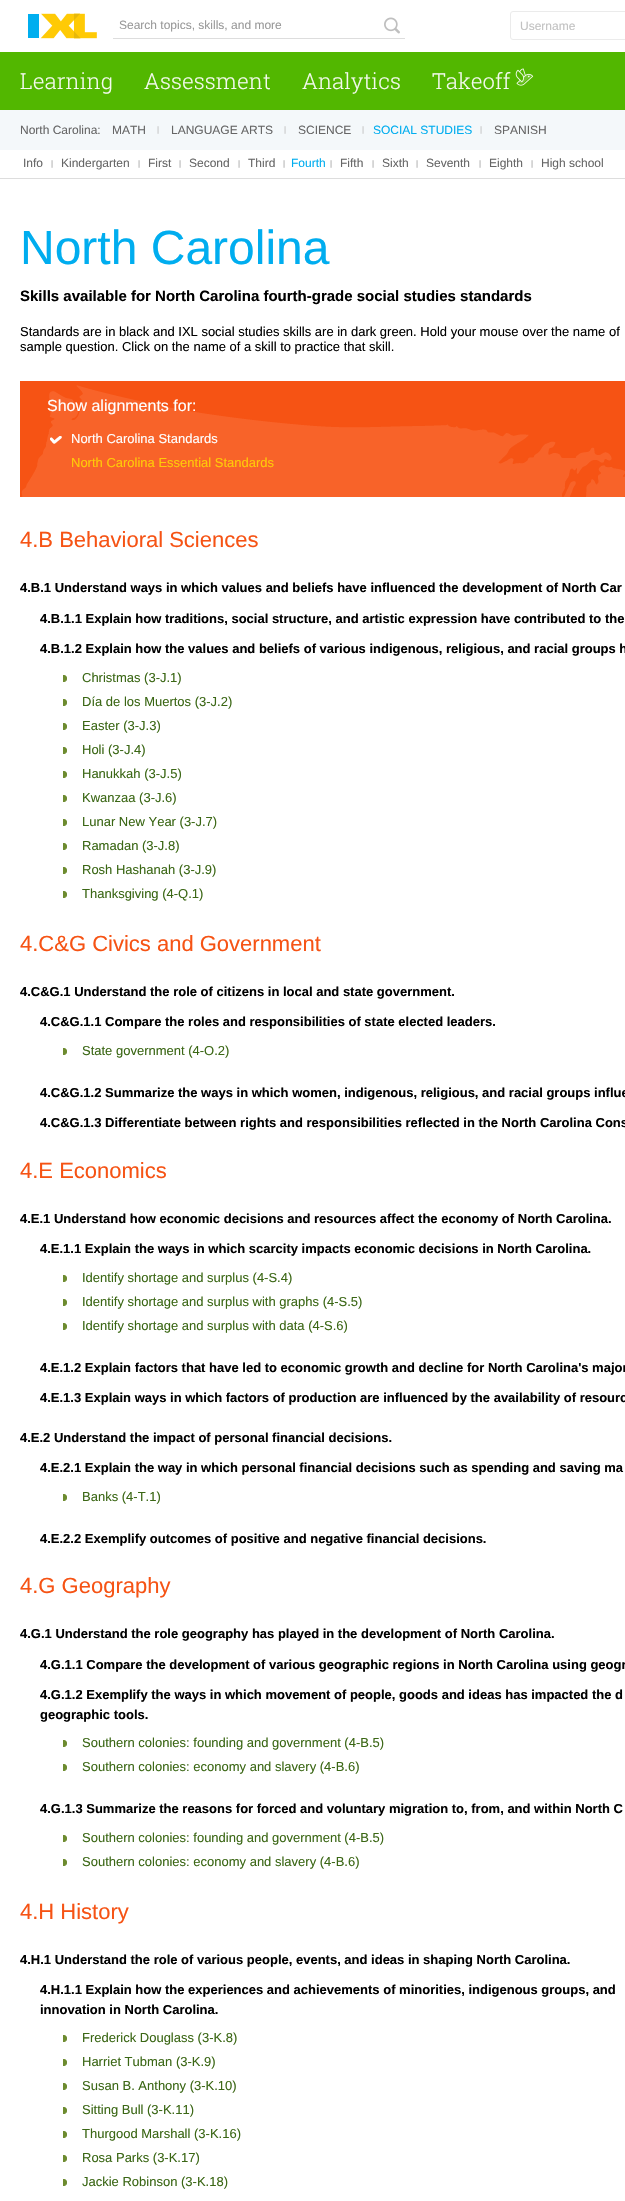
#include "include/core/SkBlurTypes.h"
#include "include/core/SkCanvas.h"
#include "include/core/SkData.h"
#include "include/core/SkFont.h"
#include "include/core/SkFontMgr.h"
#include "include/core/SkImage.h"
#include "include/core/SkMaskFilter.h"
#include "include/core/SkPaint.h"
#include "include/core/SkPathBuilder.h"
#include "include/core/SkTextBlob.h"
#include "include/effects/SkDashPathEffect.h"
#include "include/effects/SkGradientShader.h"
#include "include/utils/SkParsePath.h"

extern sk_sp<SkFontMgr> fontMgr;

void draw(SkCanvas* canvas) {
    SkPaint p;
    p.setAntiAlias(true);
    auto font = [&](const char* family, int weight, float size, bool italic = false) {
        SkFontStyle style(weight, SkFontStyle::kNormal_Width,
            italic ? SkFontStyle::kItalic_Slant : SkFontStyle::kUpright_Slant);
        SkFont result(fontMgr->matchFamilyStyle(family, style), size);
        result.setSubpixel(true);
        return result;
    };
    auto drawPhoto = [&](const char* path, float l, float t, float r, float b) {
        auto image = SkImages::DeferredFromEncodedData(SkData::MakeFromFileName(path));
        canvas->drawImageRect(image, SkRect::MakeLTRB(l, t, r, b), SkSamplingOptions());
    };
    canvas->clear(0xFFFFFFFF);
    drawPhoto("media/1.png", 28, 13, 97, 39);
    p.setColor(0xFFDDDDDD);
    canvas->drawRect(SkRect::MakeLTRB(113, 38, 405, 39), p);
    auto font1 = font("Liberation Sans", 400, 12);
    p.setColor(0xFF999999);
    canvas->drawString("Search topics, skills, and more", 119, 29, font1, p);
    drawPhoto("media/2.png", 384, 17, 400, 34);
    p.setStyle(SkPaint::kStroke_Style);
    p.setStrokeWidth(1);
    p.setColor(0xFFEBEBEB);
    canvas->drawRoundRect(SkRect::MakeLTRB(510.5f, 11.5f, 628.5f, 39.5f), 2.5f, 2.5f, p);
    p.setStyle(SkPaint::kFill_Style);
    p.setColor(0xFFC2C2C2);
    canvas->drawString("Username", 520, 30, font1, p);
    p.setColor(0xFF52B700);
    canvas->drawRect(SkRect::MakeLTRB(0, 52, 625, 110), p);
    auto font2 = font("Roboto Slab", 300, 22);
    p.setColor(0xFFF4FAEF);
    {
        const struct { const char* s; float x, y; } items[] = {
            {"Learning", 20, 89},
            {"Assessment", 144, 89},
            {"Analytics", 302, 89},
            {"Takeoff", 432, 89},
        };
        for (auto [s, x, y] : items) {
            canvas->drawString(s, x, y, font2, p);
        }
    }
    drawPhoto("media/3.png", 515, 68, 534, 86);
    p.setColor(0xFFF4F8FA);
    canvas->drawRect(SkRect::MakeLTRB(0, 110, 625, 150), p);
    p.setColor(0xFF666666);
    canvas->drawString("North Carolina:", 20, 134, font1, p);
    canvas->drawString("MATH", 112, 134, font1, p);
    auto font3 = font("Liberation Sans", 400, 8);
    p.setColor(0xFFBCBCBC);
    canvas->drawString("|", 157, 132, font3, p);
    p.setColor(0xFF666666);
    canvas->drawString("LANGUAGE ARTS", 171, 134, font1, p);
    p.setColor(0xFFBCBCBC);
    canvas->drawString("|", 284, 132, font3, p);
    p.setColor(0xFF666666);
    canvas->drawString("SCIENCE", 298, 134, font1, p);
    p.setColor(0xFFBCBCBC);
    canvas->drawString("|", 362, 132, font3, p);
    p.setColor(0xFF00ADEF);
    canvas->drawString("SOCIAL STUDIES", 373, 134, font1, p);
    p.setColor(0xFFBCBCBC);
    canvas->drawString("|", 480, 132, font3, p);
    p.setColor(0xFF666666);
    canvas->drawString("SPANISH", 494, 134, font1, p);
    p.setColor(0xFFDDDDDD);
    canvas->drawRect(SkRect::MakeLTRB(0, 178, 625, 179), p);
    p.setColor(0xFF666666);
    canvas->drawString("Info", 23, 167, font1, p);
    p.setColor(0xFF9F9F9F);
    canvas->drawString("|", 51, 166, font3, p);
    p.setColor(0xFF666666);
    canvas->drawString("Kindergarten", 61, 167, font1, p);
    p.setColor(0xFF9F9F9F);
    canvas->drawString("|", 138, 166, font3, p);
    p.setColor(0xFF666666);
    canvas->drawString("First", 148, 167, font1, p);
    p.setColor(0xFF9F9F9F);
    canvas->drawString("|", 179, 166, font3, p);
    p.setColor(0xFF666666);
    canvas->drawString("Second", 189, 167, font1, p);
    p.setColor(0xFF9F9F9F);
    canvas->drawString("|", 238, 166, font3, p);
    p.setColor(0xFF666666);
    canvas->drawString("Third", 248, 167, font1, p);
    p.setColor(0xFF9F9F9F);
    canvas->drawString("|", 283, 166, font3, p);
    p.setColor(0xFF00ADEF);
    canvas->drawString("Fourth", 291, 167, font1, p);
    p.setColor(0xFF9F9F9F);
    canvas->drawString("|", 330, 166, font3, p);
    p.setColor(0xFF666666);
    canvas->drawString("Fifth", 340, 167, font1, p);
    p.setColor(0xFF9F9F9F);
    canvas->drawString("|", 372, 166, font3, p);
    p.setColor(0xFF666666);
    canvas->drawString("Sixth", 382, 167, font1, p);
    p.setColor(0xFF9F9F9F);
    canvas->drawString("|", 416, 166, font3, p);
    p.setColor(0xFF666666);
    canvas->drawString("Seventh", 426, 167, font1, p);
    p.setColor(0xFF9F9F9F);
    canvas->drawString("|", 479, 166, font3, p);
    p.setColor(0xFF666666);
    canvas->drawString("Eighth", 489, 167, font1, p);
    p.setColor(0xFF9F9F9F);
    canvas->drawString("|", 531, 166, font3, p);
    p.setColor(0xFF666666);
    canvas->drawString("High school", 541, 167, font1, p);
    auto font4 = font("Liberation Sans", 400, 48);
    p.setColor(0xFF00ADEF);
    canvas->drawString("North Carolina", 20, 264, font4, p);
    auto font5 = font("Liberation Sans", 700, 15);
    p.setColor(0xFF000000);
    canvas->drawString("Skills available for North Carolina fourth-grade social studies standards", 20, 301, font5, p);
    auto font6 = font("Liberation Sans", 400, 13);
    canvas->drawString("Standards are in black and IXL social studies skills are in dark green. Hold your mouse over the name of", 20, 336, font6, p);
    canvas->drawString("sample question. Click on the name of a skill to practice that skill.", 20, 351, font6, p);
    p.setColor(0xFFF65314);
    canvas->drawRect(SkRect::MakeLTRB(20, 381, 625, 497), p);
    drawPhoto("media/4.png", 21, 385, 625, 497);
    auto font7 = font("Liberation Sans", 400, 16);
    p.setColor(0xFFFFFFFF);
    canvas->drawString("Show alignments for:", 47, 411, font7, p);
    drawPhoto("media/5.png", 50, 436, 62, 444);
    canvas->drawString("North Carolina Standards", 71, 443, font6, p);
    p.setColor(0xFFFFCA08);
    canvas->drawString("North Carolina Essential Standards", 71, 467, font6, p);
    auto font8 = font("Liberation Sans", 400, 22);
    p.setColor(0xFFF65314);
    canvas->drawString("4.B Behavioral Sciences", 20, 547, font8, p);
    auto font9 = font("Liberation Sans", 700, 13);
    p.setColor(0xFF000000);
    {
        const struct { const char* s; float x, y; } items[] = {
            {"4.B.1 Understand ways in which values and beliefs have influenced the development of North Car", 20, 592},
            {"4.B.1.1 Explain how traditions, social structure, and artistic expression have contributed to the", 40, 623},
            {"4.B.1.2 Explain how the values and beliefs of various indigenous, religious, and racial groups h", 40, 653},
        };
        for (auto [s, x, y] : items) {
            canvas->drawString(s, x, y, font9, p);
        }
    }
    drawPhoto("media/6.png", 63, 675, 67, 682);
    p.setColor(0xFF3B6715);
    canvas->drawString("Christmas (3-J.1)", 82, 682, font6, p);
    drawPhoto("media/6.png", 63, 699, 67, 706);
    canvas->drawString("Día de los Muertos (3-J.2)", 82, 706, font6, p);
    drawPhoto("media/6.png", 63, 723, 67, 730);
    canvas->drawString("Easter (3-J.3)", 82, 730, font6, p);
    drawPhoto("media/6.png", 63, 747, 67, 754);
    canvas->drawString("Holi (3-J.4)", 82, 754, font6, p);
    drawPhoto("media/6.png", 63, 771, 67, 778);
    canvas->drawString("Hanukkah (3-J.5)", 82, 778, font6, p);
    drawPhoto("media/6.png", 63, 795, 67, 802);
    canvas->drawString("Kwanzaa (3-J.6)", 82, 802, font6, p);
    drawPhoto("media/6.png", 63, 819, 67, 826);
    canvas->drawString("Lunar New Year (3-J.7)", 82, 826, font6, p);
    drawPhoto("media/6.png", 63, 843, 67, 850);
    canvas->drawString("Ramadan (3-J.8)", 82, 850, font6, p);
    drawPhoto("media/6.png", 63, 867, 67, 874);
    canvas->drawString("Rosh Hashanah (3-J.9)", 82, 874, font6, p);
    drawPhoto("media/6.png", 63, 891, 67, 898);
    canvas->drawString("Thanksgiving (4-Q.1)", 82, 898, font6, p);
    p.setColor(0xFFF65314);
    canvas->drawString("4.C&G Civics and Government", 20, 951, font8, p);
    p.setColor(0xFF000000);
    canvas->drawString("4.C&G.1 Understand the role of citizens in local and state government.", 20, 996, font9, p);
    canvas->drawString("4.C&G.1.1 Compare the roles and responsibilities of state elected leaders.", 40, 1026, font9, p);
    drawPhoto("media/6.png", 63, 1048, 67, 1055);
    p.setColor(0xFF3B6715);
    canvas->drawString("State government (4-O.2)", 82, 1055, font6, p);
    p.setColor(0xFF000000);
    canvas->drawString("4.C&G.1.2 Summarize the ways in which women, indigenous, religious, and racial groups influe", 40, 1097, font9, p);
    canvas->drawString("4.C&G.1.3 Differentiate between rights and responsibilities reflected in the North Carolina Cons", 40, 1127, font9, p);
    p.setColor(0xFFF65314);
    canvas->drawString("4.E Economics", 20, 1178, font8, p);
    p.setColor(0xFF000000);
    canvas->drawString("4.E.1 Understand how economic decisions and resources affect the economy of North Carolina.", 20, 1223, font9, p);
    canvas->drawString("4.E.1.1 Explain the ways in which scarcity impacts economic decisions in North Carolina.", 40, 1253, font9, p);
    drawPhoto("media/6.png", 63, 1275, 67, 1282);
    p.setColor(0xFF3B6715);
    canvas->drawString("Identify shortage and surplus (4-S.4)", 82, 1282, font6, p);
    drawPhoto("media/6.png", 63, 1299, 67, 1306);
    canvas->drawString("Identify shortage and surplus with graphs (4-S.5)", 82, 1306, font6, p);
    drawPhoto("media/6.png", 63, 1323, 67, 1330);
    canvas->drawString("Identify shortage and surplus with data (4-S.6)", 82, 1330, font6, p);
    p.setColor(0xFF000000);
    {
        const struct { const char* s; float x, y; } items[] = {
            {"4.E.1.2 Explain factors that have led to economic growth and decline for North Carolina's major", 40, 1372},
            {"4.E.1.3 Explain ways in which factors of production are influenced by the availability of resourc", 40, 1402},
            {"4.E.2 Understand the impact of personal financial decisions.", 20, 1442},
            {"4.E.2.1 Explain the way in which personal financial decisions such as spending and saving ma", 40, 1472},
        };
        for (auto [s, x, y] : items) {
            canvas->drawString(s, x, y, font9, p);
        }
    }
    drawPhoto("media/6.png", 63, 1494, 67, 1501);
    p.setColor(0xFF3B6715);
    canvas->drawString("Banks (4-T.1)", 82, 1501, font6, p);
    p.setColor(0xFF000000);
    canvas->drawString("4.E.2.2 Exemplify outcomes of positive and negative financial decisions.", 40, 1543, font9, p);
    p.setColor(0xFFF65314);
    canvas->drawString("4.G Geography", 20, 1593, font8, p);
    p.setColor(0xFF000000);
    {
        const struct { const char* s; float x, y; } items[] = {
            {"4.G.1 Understand the role geography has played in the development of North Carolina.", 20, 1638},
            {"4.G.1.1 Compare the development of various geographic regions in North Carolina using geogr", 40, 1669},
            {"4.G.1.2 Exemplify the ways in which movement of people, goods and ideas has impacted the d", 40, 1699},
            {"geographic tools.", 40, 1719},
        };
        for (auto [s, x, y] : items) {
            canvas->drawString(s, x, y, font9, p);
        }
    }
    drawPhoto("media/6.png", 63, 1740, 67, 1747);
    p.setColor(0xFF3B6715);
    canvas->drawString("Southern colonies: founding and government (4-B.5)", 82, 1747, font6, p);
    drawPhoto("media/6.png", 63, 1764, 67, 1771);
    canvas->drawString("Southern colonies: economy and slavery (4-B.6)", 82, 1771, font6, p);
    p.setColor(0xFF000000);
    canvas->drawString("4.G.1.3 Summarize the reasons for forced and voluntary migration to, from, and within North C", 40, 1813, font9, p);
    drawPhoto("media/6.png", 63, 1835, 67, 1842);
    p.setColor(0xFF3B6715);
    canvas->drawString("Southern colonies: founding and government (4-B.5)", 82, 1842, font6, p);
    drawPhoto("media/6.png", 63, 1859, 67, 1866);
    canvas->drawString("Southern colonies: economy and slavery (4-B.6)", 82, 1866, font6, p);
    p.setColor(0xFFF65314);
    canvas->drawString("4.H History", 20, 1919, font8, p);
    p.setColor(0xFF000000);
    {
        const struct { const char* s; float x, y; } items[] = {
            {"4.H.1 Understand the role of various people, events, and ideas in shaping North Carolina.", 20, 1964},
            {"4.H.1.1 Explain how the experiences and achievements of minorities, indigenous groups, and", 40, 1994},
            {"innovation in North Carolina.", 40, 2014},
        };
        for (auto [s, x, y] : items) {
            canvas->drawString(s, x, y, font9, p);
        }
    }
    drawPhoto("media/6.png", 63, 2035, 67, 2042);
    p.setColor(0xFF3B6715);
    canvas->drawString("Frederick Douglass (3-K.8)", 82, 2042, font6, p);
    drawPhoto("media/6.png", 63, 2059, 67, 2066);
    canvas->drawString("Harriet Tubman (3-K.9)", 82, 2066, font6, p);
    drawPhoto("media/6.png", 63, 2083, 67, 2090);
    canvas->drawString("Susan B. Anthony (3-K.10)", 82, 2090, font6, p);
    drawPhoto("media/6.png", 63, 2107, 67, 2114);
    canvas->drawString("Sitting Bull (3-K.11)", 82, 2114, font6, p);
    drawPhoto("media/6.png", 63, 2131, 67, 2138);
    canvas->drawString("Thurgood Marshall (3-K.16)", 82, 2138, font6, p);
    drawPhoto("media/6.png", 63, 2155, 67, 2162);
    canvas->drawString("Rosa Parks (3-K.17)", 82, 2162, font6, p);
    drawPhoto("media/6.png", 63, 2179, 67, 2186);
    canvas->drawString("Jackie Robinson (3-K.18)", 82, 2186, font6, p);
}
